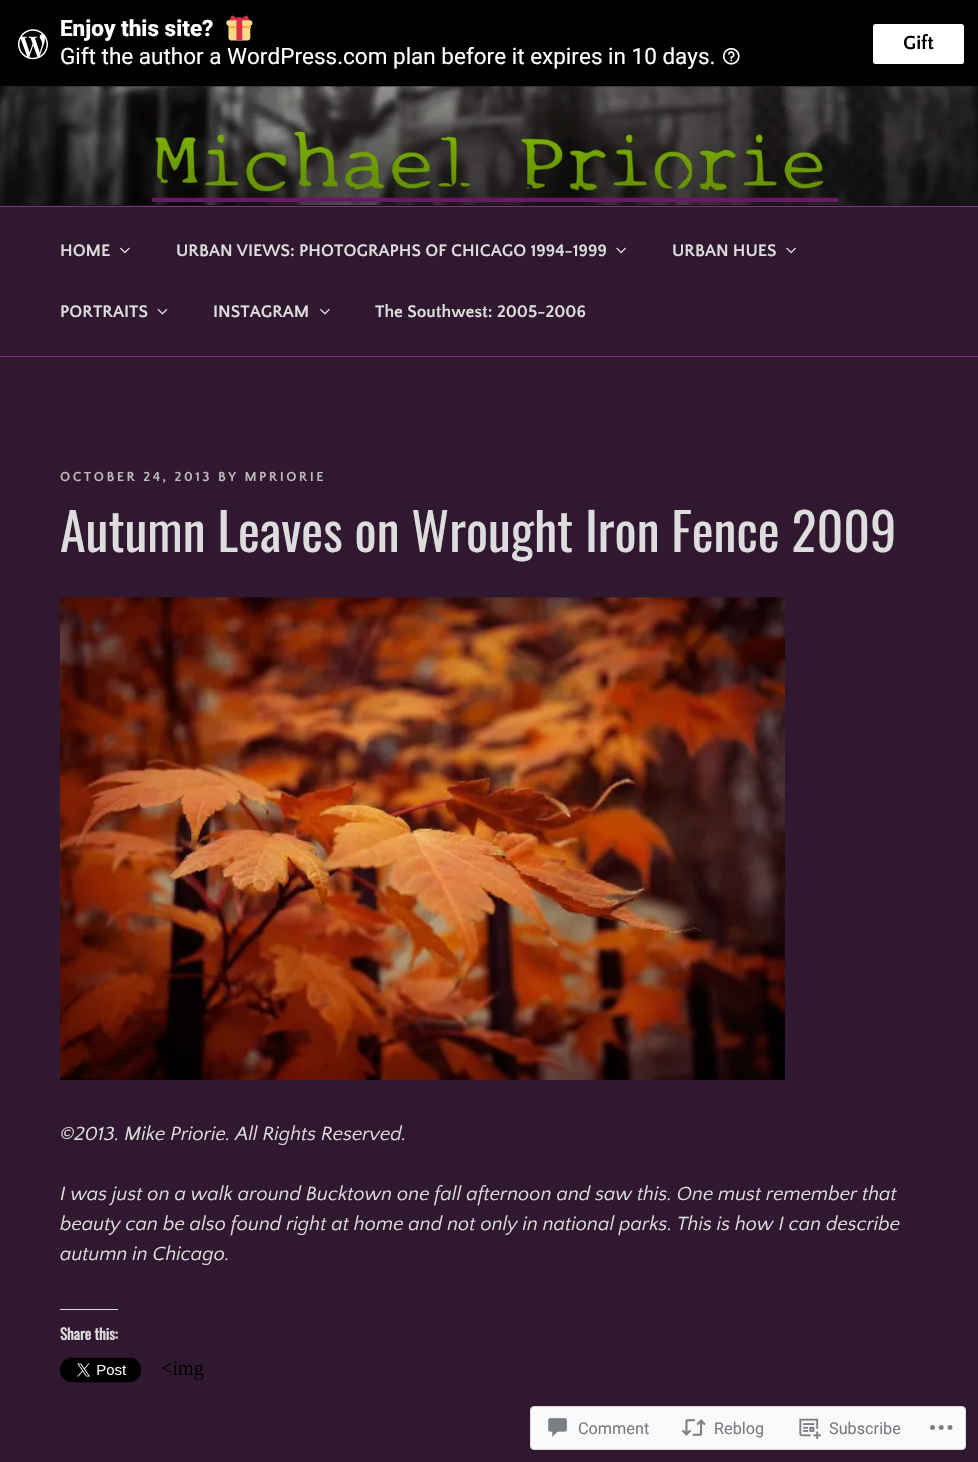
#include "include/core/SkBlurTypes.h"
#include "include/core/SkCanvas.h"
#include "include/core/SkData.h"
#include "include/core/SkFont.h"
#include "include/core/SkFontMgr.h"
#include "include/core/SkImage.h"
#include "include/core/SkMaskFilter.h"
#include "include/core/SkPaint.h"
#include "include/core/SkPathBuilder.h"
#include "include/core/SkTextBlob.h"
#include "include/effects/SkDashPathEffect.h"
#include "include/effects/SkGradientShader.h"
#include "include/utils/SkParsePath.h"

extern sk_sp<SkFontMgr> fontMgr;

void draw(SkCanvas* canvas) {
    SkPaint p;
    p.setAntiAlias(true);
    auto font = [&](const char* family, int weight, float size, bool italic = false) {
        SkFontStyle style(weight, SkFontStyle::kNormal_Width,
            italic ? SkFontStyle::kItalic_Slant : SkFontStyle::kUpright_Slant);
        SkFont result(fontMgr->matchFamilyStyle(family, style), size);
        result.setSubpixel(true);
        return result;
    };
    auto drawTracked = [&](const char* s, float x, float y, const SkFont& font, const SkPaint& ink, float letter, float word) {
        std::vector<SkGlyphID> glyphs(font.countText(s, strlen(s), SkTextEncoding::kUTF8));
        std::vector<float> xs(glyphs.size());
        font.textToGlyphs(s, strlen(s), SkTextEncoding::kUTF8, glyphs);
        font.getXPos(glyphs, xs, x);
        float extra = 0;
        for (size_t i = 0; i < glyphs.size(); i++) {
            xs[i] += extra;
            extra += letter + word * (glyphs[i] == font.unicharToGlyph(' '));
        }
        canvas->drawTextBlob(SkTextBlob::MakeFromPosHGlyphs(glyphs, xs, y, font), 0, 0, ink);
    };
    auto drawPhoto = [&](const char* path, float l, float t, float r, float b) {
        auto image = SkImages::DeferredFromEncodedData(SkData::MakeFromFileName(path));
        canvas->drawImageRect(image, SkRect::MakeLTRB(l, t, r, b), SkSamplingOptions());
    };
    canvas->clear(0xFF301830);
    p.setColor(0xFF000000);
    canvas->drawRect(SkRect::MakeLTRB(0, 0, 978, 86), p);
    drawPhoto("media/1.png", 18, 29, 48, 60);
    auto font1 = font("Roboto", 800, 22.5f);
    p.setColor(0xFFFFFFFF);
    canvas->drawString("Enjoy this site?", 60, 36, font1, p);
    drawPhoto("media/2.png", 226, 15, 253, 41);
    auto font2 = font("Roboto", 400, 22.5f);
    canvas->drawString("Gift the author a WordPress.com plan before it expires in 10 days.", 60, 64, font2, p);
    drawPhoto("media/3.png", 722, 47, 740, 65);
    canvas->drawRoundRect(SkRect::MakeLTRB(873, 24, 964, 64), 2.5f, 2.5f, p);
    auto font3 = font("Quattrocento Sans", 700, 20);
    p.setColor(0xFF000000);
    canvas->drawString("Gift", 903, 49, font3, p);
    p.setColor(0xFF281428);
    canvas->drawRect(SkRect::MakeLTRB(0, 86, 978, 206), p);
    drawPhoto("media/4.png", 0, 86, 978, 205);
    {
        const SkColor colors[] = {0x00000000, 0x4D000000, 0x4D000000};
        const float stops[] = {0, 0.75f, 1};
        const SkPoint ends[] = {{489, 86}, {489, 206}};
        p.setShader(SkGradientShader::MakeLinear(ends, colors, stops, 3, SkTileMode::kClamp));
        p.setAlpha(255);
    }
    canvas->drawRect(SkRect::MakeLTRB(0, 92, 978, 206), p);
    p.setShader(nullptr);
    p.setColor(0xFF7D347D);
    canvas->drawRect(SkRect::MakeLTRB(0, 206, 978, 207), p);
    canvas->drawRect(SkRect::MakeLTRB(0, 356, 978, 357), p);
    auto font4 = font("Quattrocento Sans", 700, 17.5f);
    p.setColor(0xFFDDDDDD);
    canvas->drawString("HOME", 60, 256, font4, p);
    drawPhoto("media/5.png", 120, 247, 130, 254);
    canvas->drawString("URBAN VIEWS: PHOTOGRAPHS OF CHICAGO 1994-1999", 176, 256, font4, p);
    drawPhoto("media/6.png", 616, 247, 626, 254);
    canvas->drawString("URBAN HUES", 672, 256, font4, p);
    drawPhoto("media/6.png", 786, 247, 796, 254);
    canvas->drawString("PORTRAITS", 60, 317, font4, p);
    drawPhoto("media/7.png", 157, 308, 168, 315);
    canvas->drawString("INSTAGRAM", 213, 317, font4, p);
    drawPhoto("media/8.png", 320, 308, 330, 315);
    canvas->drawString("The Southwest: 2005-2006", 375, 317, font4, p);
    auto font5 = font("Quattrocento Sans", 700, 13.75f);
    p.setColor(0xFFBBBBBB);
    drawTracked("OCTOBER 24, 2013 BY MPRIORIE", 60, 481, font5, p, 2.5f, 0);
    auto font6 = font("Oswald", 400, 52);
    p.setColor(0xFFDDDDDD);
    canvas->drawString("Autumn Leaves on Wrought Iron Fence 2009", 60, 552, font6, p);
    drawPhoto("media/9.png", 60, 597, 785, 1080);
    auto font7 = font("Quattrocento Sans", 400, 20, true);
    {
        const struct { const char* s; float x, y; } items[] = {
            {"©2013. Mike Priorie. All Rights Reserved.", 60, 1140},
            {"I was just on a walk around Bucktown one fall afternoon and saw this. One must remember that", 60, 1200},
            {"beauty can be also found right at home and not only in national parks. This is how I can describe", 60, 1230},
            {"autumn in Chicago.", 60, 1260},
        };
        for (auto [s, x, y] : items) {
            canvas->drawString(s, x, y, font7, p);
        }
    }
    p.setColor(0xFFDCDCDE);
    canvas->drawRect(SkRect::MakeLTRB(60, 1309, 118, 1310), p);
    auto font8 = font("Oswald", 700, 15);
    p.setColor(0xFFDDDDDD);
    canvas->drawString("Share this:", 60, 1340, font8, p);
    drawPhoto("media/10.png", 60, 1357, 141, 1383);
    drawPhoto("media/11.png", 162, 1361, 204, 1380);
    p.setColor(0xFFFBFAFB);
    canvas->drawRoundRect(SkRect::MakeLTRB(530.5f, 1406.5f, 965.5f, 1449.5f), 3.5f, 3.5f, p);
    p.setStyle(SkPaint::kStroke_Style);
    p.setStrokeWidth(1);
    p.setColor(0xFFD9D8DB);
    canvas->drawRoundRect(SkRect::MakeLTRB(530.5f, 1406.5f, 965.5f, 1449.5f), 3.5f, 3.5f, p);
    drawPhoto("media/12.png", 548, 1418, 567, 1437);
    auto font9 = font("Roboto", 400, 16.25f);
    p.setStyle(SkPaint::kFill_Style);
    p.setColor(0xFF777A80);
    canvas->drawString("Comment", 578, 1434, font9, p);
    drawPhoto("media/13.png", 681, 1419, 706, 1436);
    canvas->drawString("Reblog", 714, 1434, font9, p);
    drawPhoto("media/14.png", 799, 1418, 821, 1440);
    canvas->drawString("Subscribe", 829, 1434, font9, p);
    drawPhoto("media/15.png", 930, 1425, 953, 1430);
}
